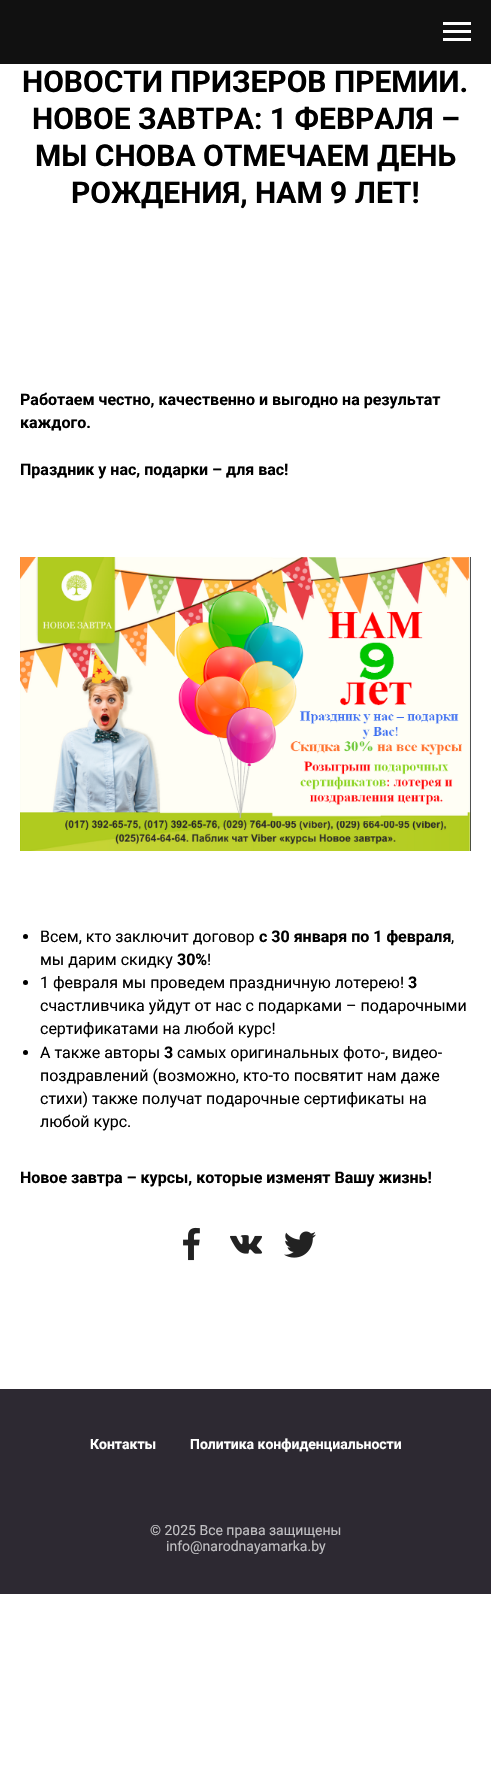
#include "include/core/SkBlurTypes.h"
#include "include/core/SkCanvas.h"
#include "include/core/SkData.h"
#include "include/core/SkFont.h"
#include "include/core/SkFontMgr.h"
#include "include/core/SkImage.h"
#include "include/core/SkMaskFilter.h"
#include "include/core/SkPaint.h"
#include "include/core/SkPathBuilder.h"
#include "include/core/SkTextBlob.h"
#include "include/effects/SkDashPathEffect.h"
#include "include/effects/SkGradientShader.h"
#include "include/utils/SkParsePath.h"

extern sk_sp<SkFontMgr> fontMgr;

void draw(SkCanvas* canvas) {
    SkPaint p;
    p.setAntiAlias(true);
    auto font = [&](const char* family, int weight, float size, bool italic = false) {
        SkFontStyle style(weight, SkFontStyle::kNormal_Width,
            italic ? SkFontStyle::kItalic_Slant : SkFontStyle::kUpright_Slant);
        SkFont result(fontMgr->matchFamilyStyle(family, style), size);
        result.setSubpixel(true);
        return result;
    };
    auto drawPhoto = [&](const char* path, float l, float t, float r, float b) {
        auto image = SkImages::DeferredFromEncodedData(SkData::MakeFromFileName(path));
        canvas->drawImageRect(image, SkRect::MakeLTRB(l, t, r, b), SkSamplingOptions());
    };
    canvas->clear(0xFFFFFFFF);
    {
        const struct { float l, t, r, b; SkColor color; } items[] = {
            {0, 0, 491, 64, 0xFF111111},
            {443, 22, 471, 25, 0xFFFFFFFF},
            {443, 30, 471, 33, 0xFFFFFFFF},
            {443, 38, 471, 41, 0xFFFFFFFF},
        };
        for (auto [l, t, r, b, color] : items) {
            p.setColor(color);
            canvas->drawRect(SkRect::MakeLTRB(l, t, r, b), p);
        }
    }
    auto font1 = font("Roboto", 700, 30);
    p.setColor(0xFF000000);
    {
        const struct { const char* s; float x, y; } items[] = {
            {"НОВОСТИ ПРИЗЕРОВ ПРЕМИИ.", 22, 92},
            {"НОВОЕ ЗАВТРА: 1 ФЕВРАЛЯ –", 32, 129},
            {"МЫ СНОВА ОТМЕЧАЕМ ДЕНЬ", 35, 166},
            {"РОЖДЕНИЯ, НАМ 9 ЛЕТ!", 71, 203},
        };
        for (auto [s, x, y] : items) {
            canvas->drawString(s, x, y, font1, p);
        }
    }
    auto font2 = font("Roboto", 700, 16);
    {
        const struct { const char* s; float x, y; } items[] = {
            {"Работаем честно, качественно и выгодно на результат", 20, 405},
            {"каждого.", 20, 428},
            {"Праздник у нас, подарки – для вас!", 20, 475},
        };
        for (auto [s, x, y] : items) {
            canvas->drawString(s, x, y, font2, p);
        }
    }
    drawPhoto("media/1.png", 20, 557, 471, 851);
    canvas->drawCircle(25.5f, 936.5f, 2.5f, p);
    auto font3 = font("Roboto", 400, 16);
    canvas->drawString("Всем, кто заключит договор", 40, 942, font3, p);
    canvas->drawString("с 30 января по 1 февраля", 259, 942, font2, p);
    canvas->drawString(",", 451, 942, font3, p);
    canvas->drawString("мы дарим скидку", 40, 965, font3, p);
    canvas->drawString("30%", 177, 965, font2, p);
    canvas->drawString("!", 207, 965, font3, p);
    canvas->drawCircle(25.5f, 982.5f, 2.5f, p);
    canvas->drawString("1 февраля мы проведем праздничную лотерею!", 40, 988, font3, p);
    canvas->drawString("3", 408, 988, font2, p);
    canvas->drawString("счастливчика уйдут от нас с подарками – подарочными", 40, 1011, font3, p);
    canvas->drawString("сертификатами на любой курс!", 40, 1034, font3, p);
    canvas->drawCircle(25.5f, 1052.5f, 2.5f, p);
    canvas->drawString("А также авторы", 40, 1058, font3, p);
    canvas->drawString("3", 164, 1058, font2, p);
    {
        const struct { const char* s; float x, y; } items[] = {
            {"самых оригинальных фото-, видео-", 177, 1058},
            {"поздравлений (возможно, кто-то посвятит нам даже", 40, 1081},
            {"стихи) также получат подарочные сертификаты на", 40, 1104},
            {"любой курс.", 40, 1127},
        };
        for (auto [s, x, y] : items) {
            canvas->drawString(s, x, y, font3, p);
        }
    }
    canvas->drawString("Новое завтра – курсы, которые изменят Вашу жизнь!", 20, 1183, font2, p);
    drawPhoto("media/2.png", 183, 1227, 200, 1261);
    drawPhoto("media/3.png", 230, 1235, 263, 1254);
    drawPhoto("media/4.png", 284, 1231, 316, 1258);
    p.setColor(0xFF2D2932);
    canvas->drawRect(SkRect::MakeLTRB(0, 1389, 491, 1594), p);
    auto font4 = font("Roboto", 700, 14);
    p.setColor(0xFFFFFFFF);
    canvas->drawString("Контакты", 90, 1449, font4, p);
    canvas->drawString("Политика конфиденциальности", 190, 1449, font4, p);
    auto font5 = font("Roboto", 400, 14);
    p.setColor(0xFFC0BFC2);
    canvas->drawString("© 2025 Все права защищены", 150, 1535, font5, p);
    canvas->drawString("info@narodnayamarka.by", 166, 1551, font5, p);
}
